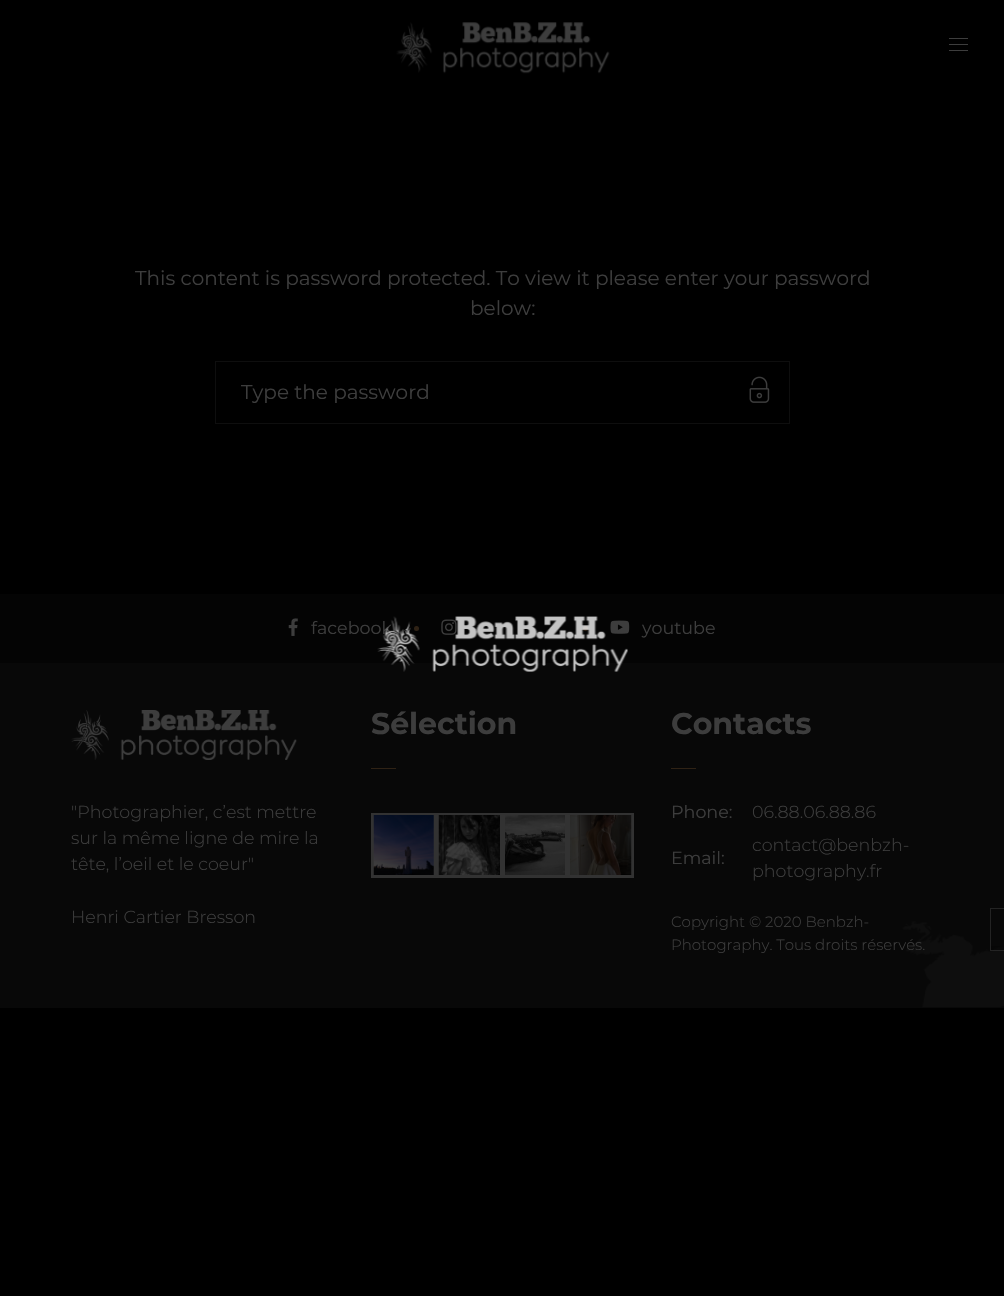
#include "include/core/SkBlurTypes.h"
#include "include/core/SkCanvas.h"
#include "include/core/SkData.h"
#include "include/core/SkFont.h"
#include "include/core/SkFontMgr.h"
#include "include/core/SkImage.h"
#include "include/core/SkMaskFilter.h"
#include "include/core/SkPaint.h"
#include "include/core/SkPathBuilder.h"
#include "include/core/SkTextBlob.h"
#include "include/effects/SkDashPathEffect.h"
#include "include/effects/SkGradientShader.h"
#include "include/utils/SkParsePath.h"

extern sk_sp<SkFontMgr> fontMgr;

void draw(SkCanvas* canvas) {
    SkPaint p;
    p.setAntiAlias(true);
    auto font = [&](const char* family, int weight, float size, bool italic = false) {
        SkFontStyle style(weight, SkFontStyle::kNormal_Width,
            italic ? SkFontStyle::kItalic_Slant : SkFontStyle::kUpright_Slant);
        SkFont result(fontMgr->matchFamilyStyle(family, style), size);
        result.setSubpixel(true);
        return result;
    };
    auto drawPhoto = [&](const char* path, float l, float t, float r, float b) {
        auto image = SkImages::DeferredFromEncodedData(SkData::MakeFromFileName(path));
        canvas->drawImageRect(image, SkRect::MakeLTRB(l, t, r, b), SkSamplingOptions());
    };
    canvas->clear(0xFF000000);
    drawPhoto("media/1.png", 396, 22, 610, 74);
    {
        const struct { float l, t, r, b; SkColor color; } items[] = {
            {949, 38, 968, 39, 0xFF3D3D3D},
            {949, 44, 968, 45, 0xFF3D3D3D},
            {949, 50, 968, 51, 0xFF3D3D3D},
        };
        for (auto [l, t, r, b, color] : items) {
            p.setColor(color);
            canvas->drawRect(SkRect::MakeLTRB(l, t, r, b), p);
        }
    }
    auto font1 = font("Montserrat", 400, 20);
    canvas->drawString("This content is password protected. To view it please enter your password", 135, 285, font1, p);
    canvas->drawString("below:", 470, 315, font1, p);
    p.setStyle(SkPaint::kStroke_Style);
    p.setStrokeWidth(1);
    p.setColor(0xFF0E0E0E);
    canvas->drawRect(SkRect::MakeLTRB(215.5f, 361.5f, 789.5f, 423.5f), p);
    p.setStyle(SkPaint::kFill_Style);
    p.setColor(0xFF3D3D3D);
    canvas->drawString("Type the password", 241, 399, font1, p);
    drawPhoto("media/2.png", 749, 376, 770, 403);
    p.setColor(0xFF040404);
    canvas->drawRect(SkRect::MakeLTRB(0, 594, 1004, 663), p);
    auto font2 = font("Montserrat", 400, 17.5f);
    p.setColor(0xFF3D3D3D);
    canvas->drawString("facebook", 311, 634, font2, p);
    p.setColor(0xFF2F2215);
    canvas->drawCircle(416.5f, 628.5f, 2.5f, p);
    drawPhoto("media/5.png", 441, 619, 457, 635);
    canvas->drawCircle(585.5f, 628.5f, 2.5f, p);
    drawPhoto("media/6.png", 610, 620, 630, 634);
    p.setColor(0xFF080808);
    canvas->drawRect(SkRect::MakeLTRB(0, 663, 1004, 1008), p);
    drawPhoto("media/3.png", 377, 616, 628, 672);
    drawPhoto("media/4.png", 288, 618, 298, 636);
    p.setColor(0xFF3D3D3D);
    canvas->drawString("youtube", 642, 634, font2, p);
    drawPhoto("media/7.png", 902, 921, 1004, 1008);
    drawPhoto("media/8.png", 71, 710, 297, 760);
    auto font3 = font("Montserrat", 300, 17.5f);
    {
        const struct { const char* s; float x, y; } items[] = {
            {"\"Photographier, c’est mettre", 71, 818},
            {"sur la même ligne de mire la", 71, 844},
            {"tête, l’oeil et le coeur\"", 71, 870},
            {"Henri Cartier Bresson", 71, 923},
        };
        for (auto [s, x, y] : items) {
            canvas->drawString(s, x, y, font3, p);
        }
    }
    auto font4 = font("Montserrat", 700, 30);
    canvas->drawString("Sélection", 371, 734, font4, p);
    p.setColor(0xFF2F2215);
    canvas->drawRect(SkRect::MakeLTRB(371, 768, 396, 769), p);
    p.setStyle(SkPaint::kStroke_Style);
    p.setStrokeWidth(3);
    p.setColor(0xFF323232);
    canvas->drawRect(SkRect::MakeLTRB(372.5f, 814.5f, 434.5f, 876.5f), p);
    drawPhoto("media/9.png", 373, 815, 434, 875);
    canvas->drawRect(SkRect::MakeLTRB(437.5f, 814.5f, 501.5f, 876.5f), p);
    drawPhoto("media/10.png", 438, 815, 500, 875);
    canvas->drawRect(SkRect::MakeLTRB(504.5f, 814.5f, 566.5f, 876.5f), p);
    drawPhoto("media/11.png", 505, 815, 565, 875);
    canvas->drawRect(SkRect::MakeLTRB(569.5f, 814.5f, 632.5f, 876.5f), p);
    drawPhoto("media/12.png", 570, 815, 632, 875);
    p.setStyle(SkPaint::kFill_Style);
    p.setColor(0xFF3D3D3D);
    canvas->drawString("Contacts", 671, 734, font4, p);
    p.setColor(0xFF2F2215);
    canvas->drawRect(SkRect::MakeLTRB(671, 768, 696, 769), p);
    p.setColor(0xFF3D3D3D);
    canvas->drawString("Phone:", 671, 818, font2, p);
    canvas->drawString("06.88.06.88.86", 752, 818, font3, p);
    canvas->drawString("contact@benbzh-", 752, 851, font3, p);
    canvas->drawString("Email:", 671, 864, font2, p);
    canvas->drawString("photography.fr", 752, 877, font3, p);
    auto font5 = font("Montserrat", 300, 15);
    canvas->drawString("Copyright © 2020 Benbzh-", 671, 927, font5, p);
    canvas->drawString("Photography. Tous droits réservés.", 671, 950, font5, p);
    p.setColor(0x80040404);
    canvas->drawRect(SkRect::MakeLTRB(991, 946, 1004, 951), p);
    p.setStyle(SkPaint::kStroke_Style);
    p.setStrokeWidth(1);
    p.setColor(0x803D3D3D);
    canvas->drawRect(SkRect::MakeLTRB(990.5f, 908.5f, 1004.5f, 950.5f), p);
}
